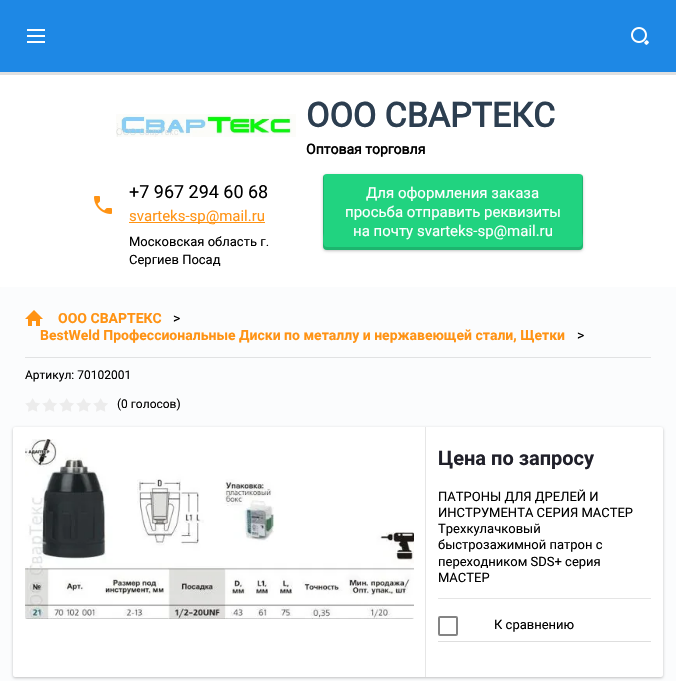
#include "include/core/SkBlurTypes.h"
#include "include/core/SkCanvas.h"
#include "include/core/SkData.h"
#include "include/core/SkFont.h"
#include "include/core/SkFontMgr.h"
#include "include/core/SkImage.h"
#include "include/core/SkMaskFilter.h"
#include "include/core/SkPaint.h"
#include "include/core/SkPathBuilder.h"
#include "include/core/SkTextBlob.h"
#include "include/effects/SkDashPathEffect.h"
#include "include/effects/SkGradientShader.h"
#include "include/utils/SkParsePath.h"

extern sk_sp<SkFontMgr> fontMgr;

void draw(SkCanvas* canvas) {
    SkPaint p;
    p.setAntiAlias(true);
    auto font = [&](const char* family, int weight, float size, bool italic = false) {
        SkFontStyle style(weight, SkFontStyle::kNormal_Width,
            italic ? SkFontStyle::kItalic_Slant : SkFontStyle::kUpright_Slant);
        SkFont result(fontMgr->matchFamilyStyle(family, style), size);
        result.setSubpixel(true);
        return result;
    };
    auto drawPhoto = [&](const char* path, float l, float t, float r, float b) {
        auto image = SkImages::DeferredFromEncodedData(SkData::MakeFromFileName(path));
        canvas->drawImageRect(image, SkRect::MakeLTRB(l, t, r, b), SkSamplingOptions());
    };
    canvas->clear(0xFFFEFCF8);
    {
        const struct { float l, t, r, b; SkColor color; } items[] = {
            {0, 75, 676, 287, 0xFFFFFFFF},
            {0, 72, 676, 75, 0xFFE0E0E0},
            {0, 0, 676, 72, 0xFF1E88E5},
        };
        for (auto [l, t, r, b, color] : items) {
            p.setColor(color);
            canvas->drawRect(SkRect::MakeLTRB(l, t, r, b), p);
        }
    }
    drawPhoto("media/1.png", 27, 29, 45, 43);
    drawPhoto("media/2.png", 631, 27, 649, 45);
    drawPhoto("media/3.png", 116, 114, 296, 137);
    auto font1 = font("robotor", 700, 34);
    p.setColor(0xFF2C3E50);
    canvas->drawString("ООО СВАРТЕКС", 306, 127, font1, p);
    auto font2 = font("robotor", 700, 14);
    p.setColor(0xFF000000);
    canvas->drawString("Оптовая торговля", 306, 154, font2, p);
    auto font3 = font("robotor", 400, 18);
    canvas->drawString("+7 967 294 60 68", 129, 198, font3, p);
    drawPhoto("media/4.png", 94, 196, 112, 214);
    p.setColor(0xFFFF9314);
    canvas->drawRect(SkRect::MakeLTRB(129, 222, 265, 223), p);
    auto font4 = font("robotor", 400, 15);
    canvas->drawString("svarteks-sp@mail.ru", 129, 221, font4, p);
    auto font5 = font("robotor", 400, 13);
    p.setColor(0xFF000000);
    canvas->drawString("Московская область г.", 129, 246, font5, p);
    canvas->drawString("Сергиев Посад", 129, 264, font5, p);
    p.setColor(0x3D000000);
    p.setMaskFilter(SkMaskFilter::MakeBlur(kNormal_SkBlurStyle, 1.5f));
    canvas->drawRoundRect(SkRect::MakeLTRB(323, 175, 583, 251), 4, 4, p);
    p.setMaskFilter(nullptr);
    p.setColor(0xFF21D380);
    canvas->drawRoundRect(SkRect::MakeLTRB(323, 174, 583, 250), 4, 4, p);
    p.setColor(0x24000000);
    canvas->drawPath(SkPathBuilder().moveTo(324, 175).cubicTo(323, 176, 323, 177, 323, 178).lineTo(323, 246).cubicTo(323, 248, 325, 250, 327, 250).lineTo(579, 250).cubicTo(581, 250, 583, 248, 583, 246).lineTo(583, 178).cubicTo(583, 177, 583, 176, 582, 175).lineTo(582, 233).cubicTo(582, 233, 585, 247, 579, 247).lineTo(327, 247).cubicTo(321, 247, 324, 233, 324, 233).close().detach(), p);
    p.setColor(0xFFFFFFFF);
    {
        const struct { const char* s; float x, y; } items[] = {
            {"Для оформления заказа", 366, 198},
            {"просьба отправить реквизиты", 345, 217},
            {"на почту svarteks-sp@mail.ru", 353, 236},
        };
        for (auto [s, x, y] : items) {
            canvas->drawString(s, x, y, font4, p);
        }
    }
    p.setColor(0xFFFBFCFD);
    canvas->drawRoundRect(SkRect::MakeLTRB(0, 287, 676, 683), 2, 2, p);
    p.setColor(0xFFE1E2E3);
    canvas->drawRect(SkRect::MakeLTRB(25, 357, 651, 358), p);
    drawPhoto("media/5.png", 25, 310, 43, 326);
    auto font6 = font("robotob", 700, 14);
    p.setColor(0xFFFF9314);
    canvas->drawString("ООО СВАРТЕКС", 58, 323, font6, p);
    auto font7 = font("robotor", 400, 14);
    p.setColor(0xFF000000);
    canvas->drawString(">", 173, 323, font7, p);
    p.setColor(0xFFFF9314);
    canvas->drawString("BestWeld Профессиональные Диски по металлу и нержавеющей стали, Щетки", 40, 340, font6, p);
    p.setColor(0xFF000000);
    canvas->drawString(">", 577, 340, font7, p);
    auto font8 = font("robotor", 400, 12);
    canvas->drawString("Артикул: 70102001", 25, 379, font8, p);
    drawPhoto("media/6.png", 25, 398, 108, 412);
    canvas->drawString("(0 голосов)", 117, 408, font8, p);
    p.setColor(0x3D000000);
    p.setMaskFilter(SkMaskFilter::MakeBlur(kNormal_SkBlurStyle, 1.5f));
    canvas->drawRoundRect(SkRect::MakeLTRB(13, 428, 663, 678), 2, 2, p);
    p.setMaskFilter(nullptr);
    p.setColor(0xFFFFFFFF);
    canvas->drawRoundRect(SkRect::MakeLTRB(13, 427, 663, 677), 2, 2, p);
    drawPhoto("media/7.png", 25, 439, 414, 619);
    p.setColor(0xFFE6E6E6);
    canvas->drawRect(SkRect::MakeLTRB(425, 427, 426, 677), p);
    auto font9 = font("robotob", 700, 20);
    p.setColor(0xFF20202A);
    canvas->drawString("Цена по запросу", 438, 465, font9, p);
    p.setColor(0xFF000000);
    {
        const struct { const char* s; float x, y; } items[] = {
            {"ПАТРОНЫ ДЛЯ ДРЕЛЕЙ И", 438, 501},
            {"ИНСТРУМЕНТА СЕРИЯ МАСТЕР", 438, 517},
            {"Трехкулачковый", 438, 533},
            {"быстрозажимной патрон с", 438, 549},
            {"переходником SDS+ серия", 438, 566},
            {"МАСТЕР", 438, 582},
        };
        for (auto [s, x, y] : items) {
            canvas->drawString(s, x, y, font5, p);
        }
    }
    p.setColor(0xFFE5E5E5);
    canvas->drawRect(SkRect::MakeLTRB(438, 598, 651, 599), p);
    p.setColor(0xFFDEDEDE);
    canvas->drawRect(SkRect::MakeLTRB(438, 641, 651, 642), p);
    p.setStyle(SkPaint::kStroke_Style);
    p.setStrokeWidth(2);
    p.setColor(0xFF848484);
    canvas->drawRoundRect(SkRect::MakeLTRB(439, 617, 457, 635), 1, 1, p);
    p.setStyle(SkPaint::kFill_Style);
    p.setColor(0xFF000000);
    canvas->drawString("К сравнению", 494, 629, font5, p);
}
